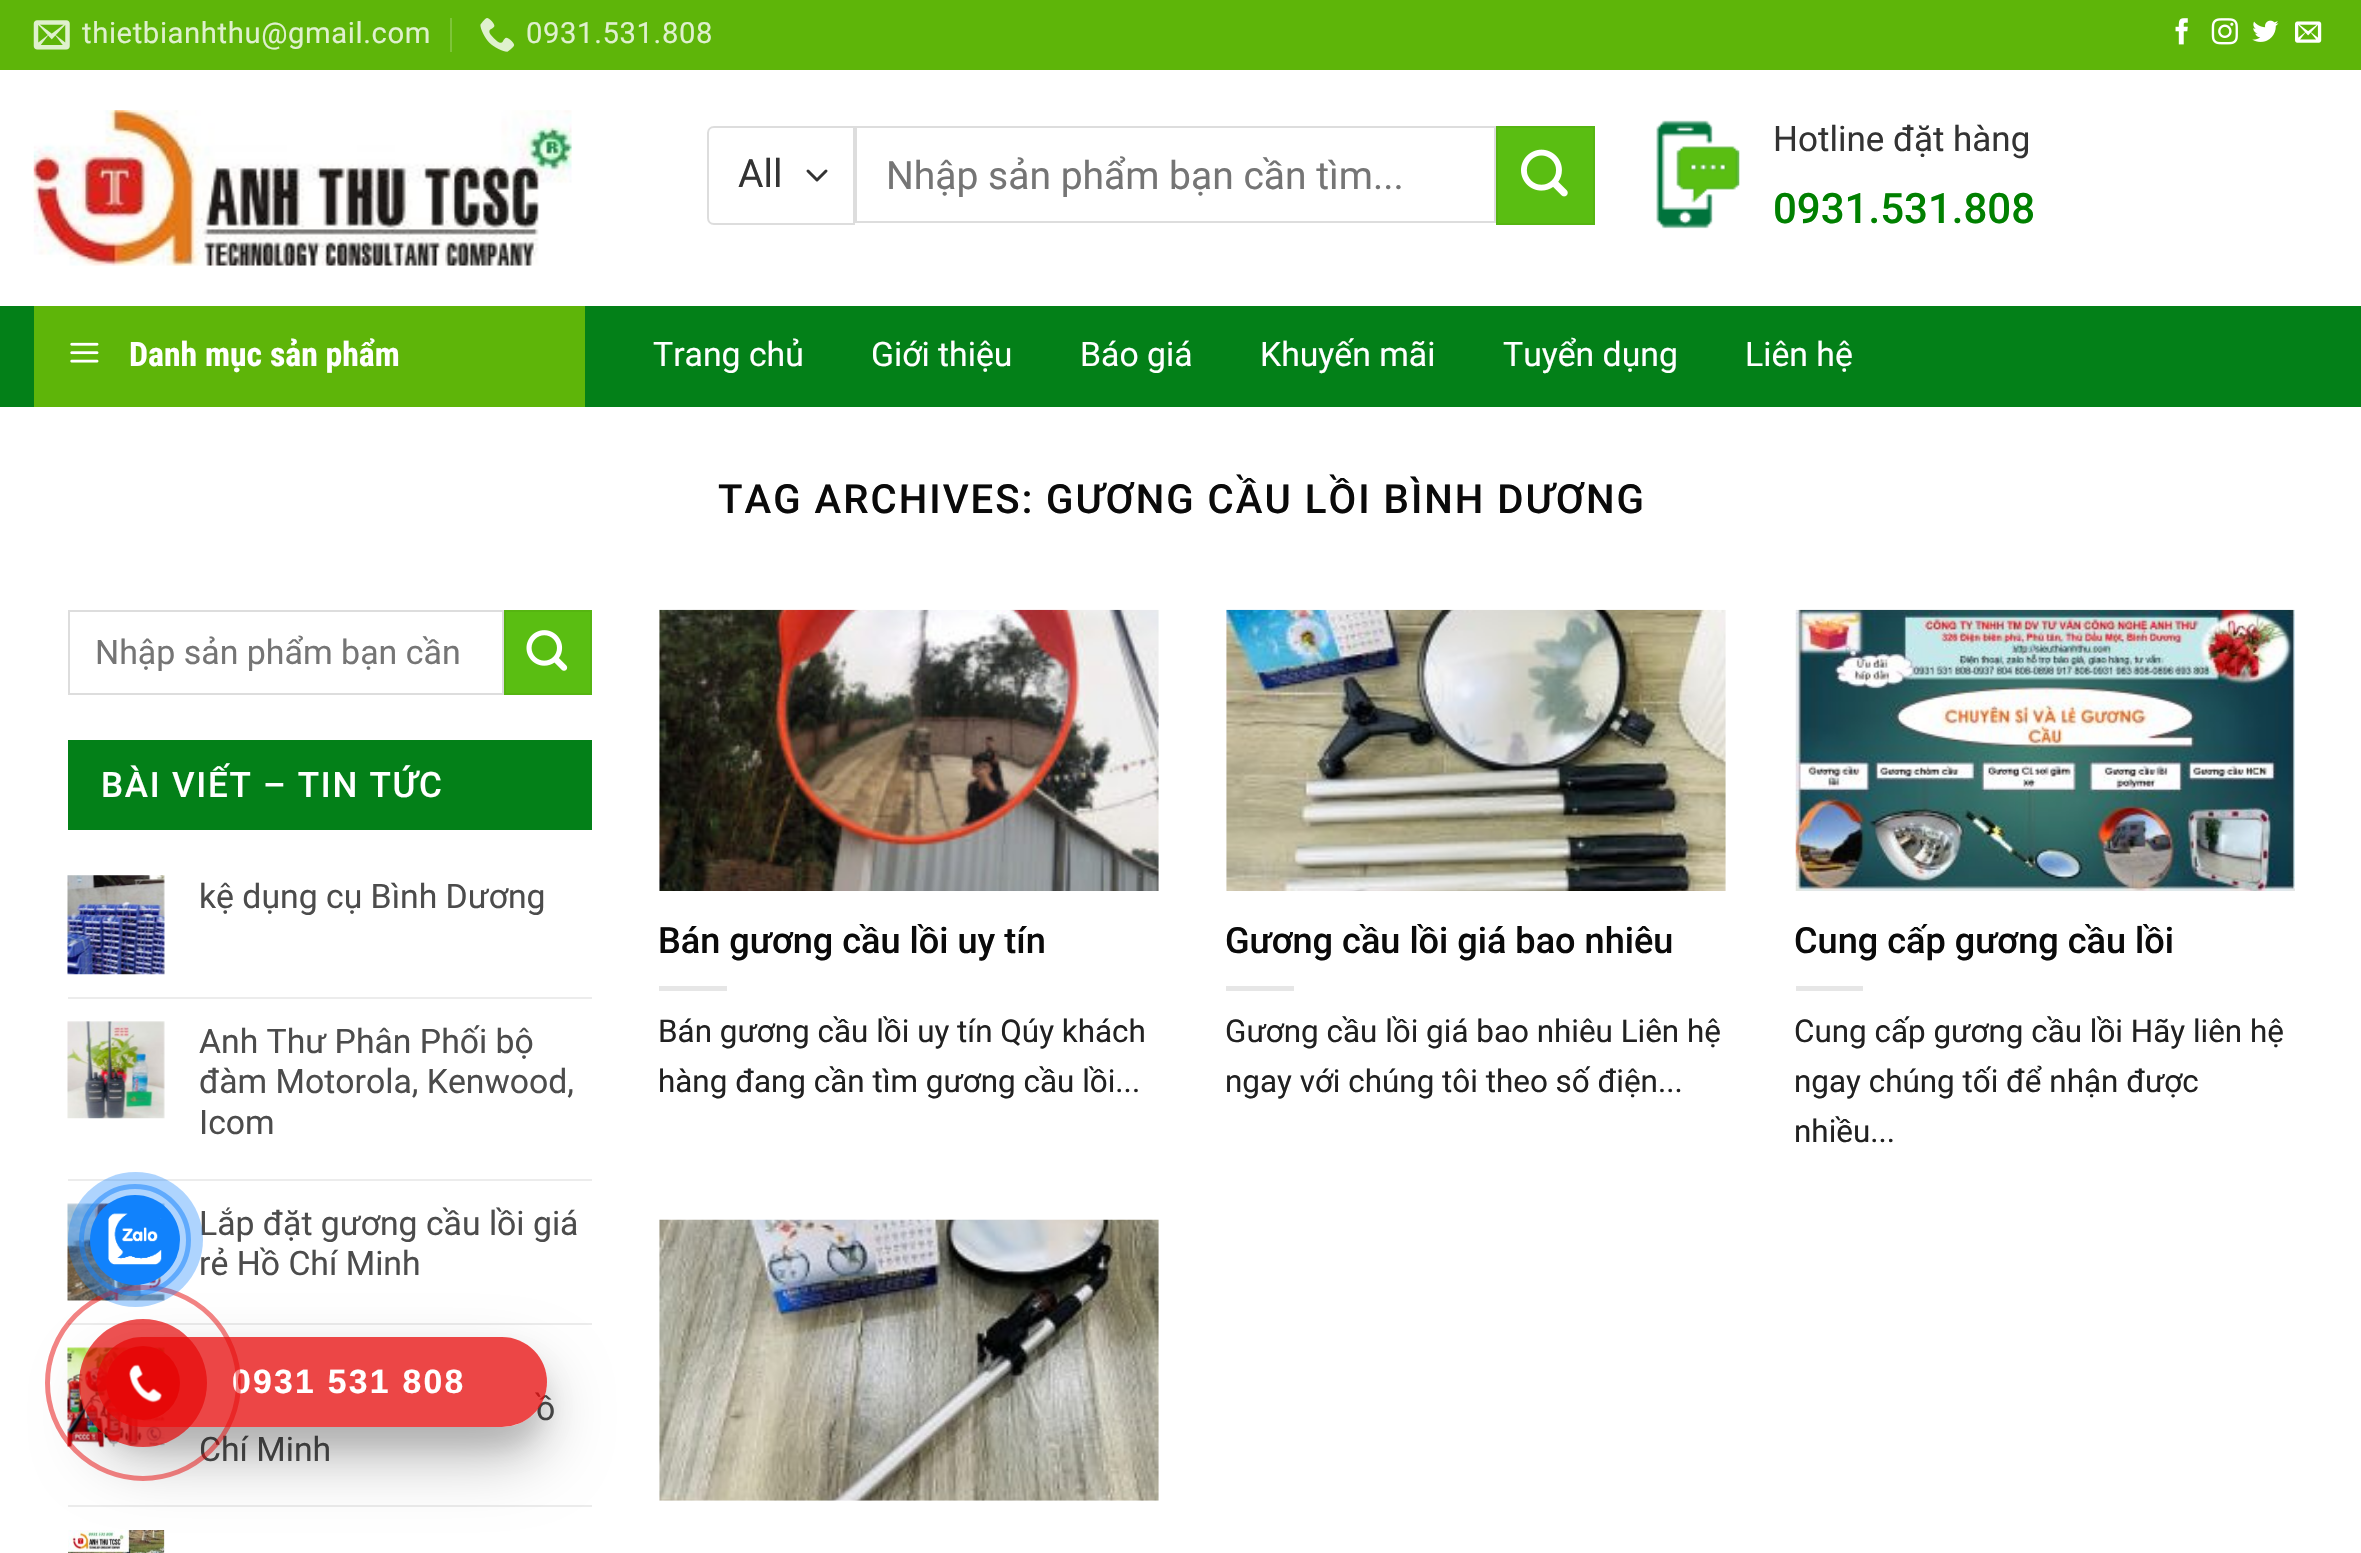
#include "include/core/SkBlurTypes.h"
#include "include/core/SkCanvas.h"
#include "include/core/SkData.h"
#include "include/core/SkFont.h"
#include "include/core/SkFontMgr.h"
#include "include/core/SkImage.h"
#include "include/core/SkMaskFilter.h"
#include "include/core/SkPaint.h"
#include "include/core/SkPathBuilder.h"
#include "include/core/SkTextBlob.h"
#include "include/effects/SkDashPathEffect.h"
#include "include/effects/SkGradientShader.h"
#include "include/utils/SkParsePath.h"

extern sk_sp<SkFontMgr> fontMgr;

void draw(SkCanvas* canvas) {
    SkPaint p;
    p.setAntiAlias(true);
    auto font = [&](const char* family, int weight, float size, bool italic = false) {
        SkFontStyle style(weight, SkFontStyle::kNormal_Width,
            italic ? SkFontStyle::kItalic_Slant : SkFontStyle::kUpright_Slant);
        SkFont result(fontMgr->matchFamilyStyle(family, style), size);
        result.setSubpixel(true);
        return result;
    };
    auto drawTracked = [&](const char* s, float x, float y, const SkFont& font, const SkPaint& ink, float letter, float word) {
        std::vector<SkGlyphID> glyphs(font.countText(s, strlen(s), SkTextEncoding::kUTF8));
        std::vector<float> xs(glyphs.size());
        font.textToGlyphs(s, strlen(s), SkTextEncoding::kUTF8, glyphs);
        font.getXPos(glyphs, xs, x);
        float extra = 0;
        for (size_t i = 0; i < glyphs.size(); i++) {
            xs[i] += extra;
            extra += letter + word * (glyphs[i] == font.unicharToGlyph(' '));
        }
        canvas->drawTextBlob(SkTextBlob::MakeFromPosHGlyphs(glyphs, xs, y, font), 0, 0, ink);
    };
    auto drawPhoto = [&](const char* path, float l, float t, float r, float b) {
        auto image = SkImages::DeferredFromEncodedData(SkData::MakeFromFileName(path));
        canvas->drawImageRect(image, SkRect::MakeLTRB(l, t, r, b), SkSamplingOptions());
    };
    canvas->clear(0xFFFFFFFF);
    p.setColor(0xFF5EB509);
    canvas->drawRect(SkRect::MakeLTRB(0, 0, 2361, 70), p);
    drawPhoto("media/1.png", 33, 20, 70, 50);
    auto font1 = font("Roboto", 400, 29.25f);
    p.setColor(0xFFDFF0CE);
    drawTracked("thietbianhthu@gmail.com", 82, 43, font1, p, 0.6f, 0);
    p.setColor(0xFF7EC43A);
    canvas->drawRect(SkRect::MakeLTRB(450, 18, 452, 52), p);
    drawPhoto("media/2.png", 480, 18, 515, 52);
    p.setColor(0xFFDFF0CE);
    drawTracked("0931.531.808", 526, 43, font1, p, 0.6f, 0);
    drawPhoto("media/3.png", 2175, 18, 2188, 45);
    drawPhoto("media/4.png", 2211, 18, 2238, 45);
    drawPhoto("media/5.png", 2252, 20, 2279, 42);
    drawPhoto("media/6.png", 2295, 21, 2322, 43);
    drawPhoto("media/7.png", 33, 110, 572, 266);
    p.setStyle(SkPaint::kStroke_Style);
    p.setStrokeWidth(3);
    p.setStrokeCap(SkPaint::kRound_Cap);
    p.setStrokeJoin(SkPaint::kRound_Join);
    p.setColor(0xFF333333);
    canvas->drawPath(SkPathBuilder().moveTo(808, 171).lineTo(817, 180).lineTo(826, 171).detach(), p);
    p.setStrokeWidth(2);
    p.setStrokeCap(SkPaint::kButt_Cap);
    p.setStrokeJoin(SkPaint::kMiter_Join);
    p.setColor(0xFFDDDDDD);
    canvas->drawPath(SkPathBuilder().moveTo(714, 127).lineTo(854, 127).lineTo(854, 224).lineTo(714, 224).cubicTo(710.5f, 224, 708, 221.5f, 708, 218).lineTo(708, 133).cubicTo(708, 129.5f, 710.5f, 127, 714, 127).close().detach(), p);
    auto font2 = font("Roboto", 400, 39);
    p.setStyle(SkPaint::kFill_Style);
    p.setColor(0xFF333333);
    canvas->drawString("All", 738, 187, font2, p);
    p.setStyle(SkPaint::kStroke_Style);
    p.setColor(0xFFDDDDDD);
    canvas->drawRect(SkRect::MakeLTRB(856, 127, 1495, 222), p);
    p.setStyle(SkPaint::kFill_Style);
    p.setColor(0xFF757575);
    canvas->drawString("Nhập sản phẩm bạn cần tìm...", 886, 189, font2, p);
    p.setColor(0xFF5ABE12);
    canvas->drawRect(SkRect::MakeLTRB(1497, 127, 1594, 224), p);
    p.setStyle(SkPaint::kStroke_Style);
    p.setColor(0xFF56B511);
    canvas->drawRect(SkRect::MakeLTRB(1497, 127, 1594, 224), p);
    drawPhoto("media/8.png", 1521, 149, 1568, 197);
    drawPhoto("media/9.png", 1656, 120, 1740, 229);
    auto font3 = font("Roboto", 400, 35);
    p.setStyle(SkPaint::kFill_Style);
    p.setColor(0xFF333333);
    canvas->drawString("Hotline đặt hàng", 1773, 151, font3, p);
    auto font4 = font("Roboto", 500, 42);
    p.setColor(0xFF008000);
    canvas->drawString("0931.531.808", 1773, 223, font4, p);
    p.setColor(0xFF038018);
    canvas->drawRect(SkRect::MakeLTRB(0, 306, 2361, 407), p);
    p.setColor(0xFF5EB509);
    canvas->drawRect(SkRect::MakeLTRB(34, 306, 585, 407), p);
    drawPhoto("media/10.png", 70, 342, 99, 363);
    auto font5 = font("Roboto Condensed", 700, 33.75f);
    p.setColor(0xFFFFFFFF);
    canvas->drawString("Danh mục sản phẩm", 129, 366, font5, p);
    auto font6 = font("Roboto", 400, 33.75f);
    {
        const struct { const char* s; float x, y; } items[] = {
            {"Trang chủ", 653, 366},
            {"Giới thiệu", 871, 366},
            {"Báo giá", 1080, 366},
            {"Khuyến mãi", 1260, 366},
            {"Tuyển dụng", 1503, 366},
            {"Liên hệ", 1745, 366},
        };
        for (auto [s, x, y] : items) {
            canvas->drawString(s, x, y, font6, p);
        }
    }
    auto font7 = font("Roboto", 500, 40.2f);
    p.setColor(0xFF0A0A0A);
    drawTracked("TAG ARCHIVES:", 718, 513, font7, p, 2, 0);
    drawTracked("GƯƠNG CẦU LỒI BÌNH DƯƠNG", 1046, 513, font7, p, 2, 0);
    p.setStyle(SkPaint::kStroke_Style);
    p.setColor(0xFFDDDDDD);
    canvas->drawRect(SkRect::MakeLTRB(69, 611, 503, 694), p);
    auto font8 = font("Roboto", 400, 33.9f);
    p.setStyle(SkPaint::kFill_Style);
    p.setColor(0xFF757575);
    canvas->drawString("Nhập sản phẩm bạn cần", 95, 664, font8, p);
    p.setColor(0xFF5ABE12);
    canvas->drawRect(SkRect::MakeLTRB(505, 611, 591, 694), p);
    p.setStyle(SkPaint::kStroke_Style);
    p.setColor(0xFF56B511);
    canvas->drawRect(SkRect::MakeLTRB(505, 611, 591, 694), p);
    drawPhoto("media/11.png", 526, 630, 568, 671);
    p.setStyle(SkPaint::kFill_Style);
    p.setColor(0xFF038018);
    canvas->drawRect(SkRect::MakeLTRB(68, 740, 592, 830), p);
    auto font9 = font("Roboto", 500, 35);
    p.setColor(0xFFFFFFFF);
    drawTracked("BÀI VIẾT – TIN TỨC", 101, 797, font9, p, 1.75f, 0);
    drawPhoto("media/12.png", 67, 875, 165, 975);
    p.setColor(0xFF4C4C4C);
    canvas->drawString("kệ dụng cụ Bình Dương", 199, 908, font6, p);
    p.setColor(0xFFECECEC);
    canvas->drawRect(SkRect::MakeLTRB(68, 997, 592, 999), p);
    drawPhoto("media/13.png", 67, 1021, 165, 1119);
    p.setColor(0xFF4C4C4C);
    {
        const struct { const char* s; float x, y; } items[] = {
            {"Anh Thư Phân Phối bộ", 199, 1053},
            {"đàm Motorola, Kenwood,", 199, 1093},
            {"Icom", 199, 1134},
        };
        for (auto [s, x, y] : items) {
            canvas->drawString(s, x, y, font6, p);
        }
    }
    p.setColor(0xFFECECEC);
    canvas->drawRect(SkRect::MakeLTRB(68, 1179, 592, 1181), p);
    drawPhoto("media/14.png", 67, 1203, 165, 1301);
    p.setColor(0xFF4C4C4C);
    canvas->drawString("Lắp đặt gương cầu lồi giá", 199, 1235, font6, p);
    canvas->drawString("rẻ Hồ Chí Minh", 199, 1275, font6, p);
    p.setColor(0xFFECECEC);
    canvas->drawRect(SkRect::MakeLTRB(68, 1323, 592, 1325), p);
    drawPhoto("media/15.png", 67, 1347, 165, 1448);
    p.setColor(0xFF4C4C4C);
    canvas->drawString("ồ", 536, 1420, font6, p);
    canvas->drawString("Chí Minh", 199, 1461, font6, p);
    p.setColor(0xFFECECEC);
    canvas->drawRect(SkRect::MakeLTRB(68, 1505, 592, 1507), p);
    drawPhoto("media/16.png", 68, 1530, 165, 1553);
    drawPhoto("media/17.png", 659, 609, 1159, 891);
    auto font10 = font("Roboto", 500, 36.1f);
    p.setColor(0xFF0A0A0A);
    canvas->drawString("Bán gương cầu lồi uy tín", 658, 953, font10, p);
    p.setColor(0xFFE6E6E6);
    canvas->drawRect(SkRect::MakeLTRB(659, 986, 727, 991), p);
    auto font11 = font("Roboto", 400, 31.4f);
    p.setColor(0xFF212121);
    canvas->drawString("Bán gương cầu lồi uy tín Qúy khách", 658, 1042, font11, p);
    canvas->drawString("hàng đang cần tìm gương cầu lồi...", 658, 1092, font11, p);
    drawPhoto("media/18.png", 1226, 609, 1726, 891);
    p.setColor(0xFF0A0A0A);
    canvas->drawString("Gương cầu lồi giá bao nhiêu", 1225, 953, font10, p);
    p.setColor(0xFFE6E6E6);
    canvas->drawRect(SkRect::MakeLTRB(1226, 986, 1294, 991), p);
    p.setColor(0xFF212121);
    canvas->drawString("Gương cầu lồi giá bao nhiêu Liên hệ", 1225, 1042, font11, p);
    canvas->drawString("ngay với chúng tôi theo số điện...", 1225, 1092, font11, p);
    drawPhoto("media/19.png", 1795, 609, 2295, 891);
    p.setColor(0xFF0A0A0A);
    canvas->drawString("Cung cấp gương cầu lồi", 1794, 953, font10, p);
    p.setColor(0xFFE6E6E6);
    canvas->drawRect(SkRect::MakeLTRB(1796, 986, 1863, 991), p);
    p.setColor(0xFF212121);
    {
        const struct { const char* s; float x, y; } items[] = {
            {"Cung cấp gương cầu lồi Hãy liên hệ", 1794, 1042},
            {"ngay chúng tối để nhận được", 1794, 1092},
            {"nhiều...", 1794, 1142},
        };
        for (auto [s, x, y] : items) {
            canvas->drawString(s, x, y, font11, p);
        }
    }
    drawPhoto("media/20.png", 659, 1219, 1159, 1501);
    canvas->save();
    canvas->clipPath(SkPathBuilder(SkPathFillType::kEvenOdd).moveTo(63, 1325).lineTo(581, 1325).lineTo(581, 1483).lineTo(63, 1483).close().moveTo(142, 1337).lineTo(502, 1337).cubicTo(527, 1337, 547, 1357, 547, 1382).cubicTo(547, 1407, 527, 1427, 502, 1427).lineTo(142, 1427).cubicTo(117, 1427, 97, 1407, 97, 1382).cubicTo(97, 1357, 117, 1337, 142, 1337).close().detach(), true);
    p.setColor(0x1A000000);
    p.setMaskFilter(SkMaskFilter::MakeBlur(kNormal_SkBlurStyle, 11));
    canvas->drawRoundRect(SkRect::MakeLTRB(97, 1359, 547, 1449), 45, 45, p);
    p.setMaskFilter(nullptr);
    canvas->restore();
    canvas->save();
    canvas->clipPath(SkPathBuilder(SkPathFillType::kEvenOdd).moveTo(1, 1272).lineTo(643, 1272).lineTo(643, 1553).lineTo(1, 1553).close().moveTo(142, 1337).lineTo(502, 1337).cubicTo(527, 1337, 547, 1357, 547, 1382).cubicTo(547, 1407, 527, 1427, 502, 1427).lineTo(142, 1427).cubicTo(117, 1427, 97, 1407, 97, 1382).cubicTo(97, 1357, 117, 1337, 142, 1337).close().detach(), true);
    p.setColor(0x40000000);
    p.setMaskFilter(SkMaskFilter::MakeBlur(kNormal_SkBlurStyle, 31.5f));
    canvas->drawRoundRect(SkRect::MakeLTRB(97, 1368, 547, 1458), 45, 45, p);
    p.setMaskFilter(nullptr);
    canvas->restore();
    p.setColor(0xBFE60808);
    canvas->drawRoundRect(SkRect::MakeLTRB(97, 1337, 547, 1427), 45, 45, p);
    auto font12 = font("Liberation Sans", 700, 33.75f);
    p.setColor(0xFFFFFFFF);
    drawTracked("0931 531 808", 232, 1393, font12, p, 2.25f, 0);
    p.setStyle(SkPaint::kStroke_Style);
    p.setStrokeWidth(5);
    p.setColor(0x80E60808);
    canvas->drawCircle(143, 1383, 95.5f, p);
    p.setColor(0x801182FC);
    canvas->drawCircle(135, 1240, 53.5f, p);
    p.setStyle(SkPaint::kFill_Style);
    p.setColor(0x571182FC);
    canvas->drawCircle(135.5f, 1239.5f, 67.5f, p);
    p.setColor(0xFF1182FC);
    canvas->drawCircle(135, 1240, 45, p);
    drawPhoto("media/21.png", 108, 1213, 162, 1265);
    p.setColor(0xB3E60808);
    canvas->drawCircle(143, 1383, 64, p);
    p.setColor(0xFFE60808);
    canvas->drawCircle(143, 1383, 37, p);
    drawPhoto("media/22.png", 129, 1364, 162, 1403);
}
